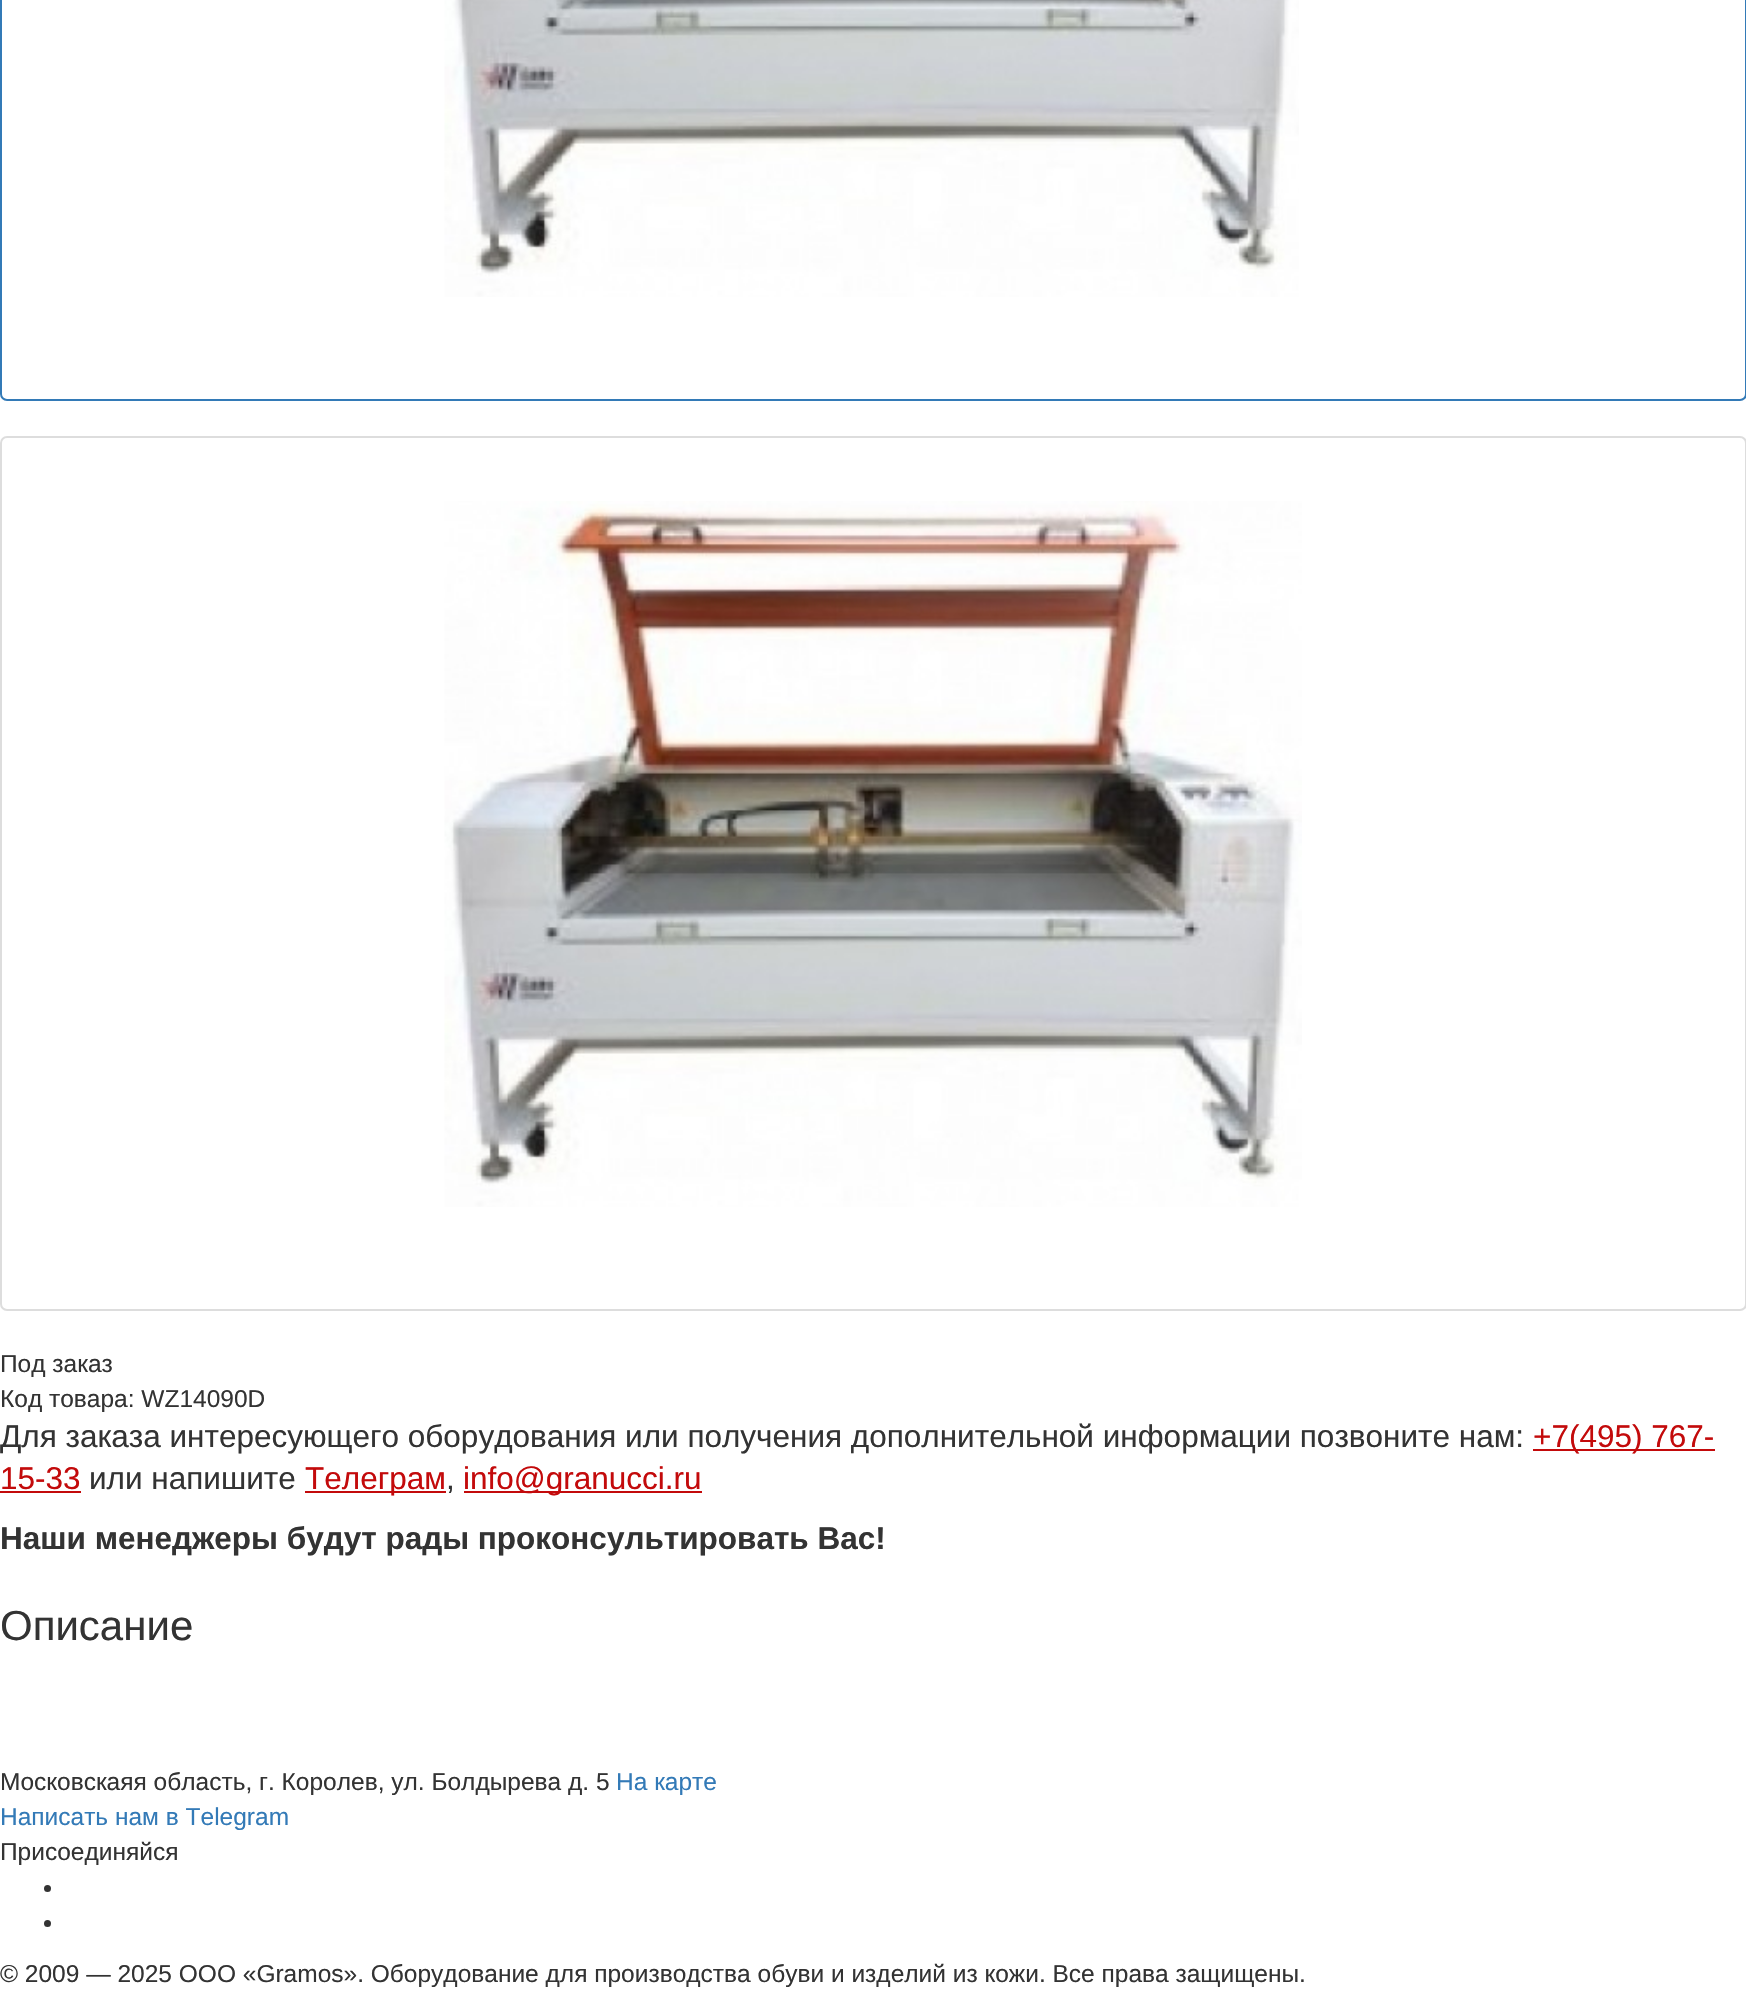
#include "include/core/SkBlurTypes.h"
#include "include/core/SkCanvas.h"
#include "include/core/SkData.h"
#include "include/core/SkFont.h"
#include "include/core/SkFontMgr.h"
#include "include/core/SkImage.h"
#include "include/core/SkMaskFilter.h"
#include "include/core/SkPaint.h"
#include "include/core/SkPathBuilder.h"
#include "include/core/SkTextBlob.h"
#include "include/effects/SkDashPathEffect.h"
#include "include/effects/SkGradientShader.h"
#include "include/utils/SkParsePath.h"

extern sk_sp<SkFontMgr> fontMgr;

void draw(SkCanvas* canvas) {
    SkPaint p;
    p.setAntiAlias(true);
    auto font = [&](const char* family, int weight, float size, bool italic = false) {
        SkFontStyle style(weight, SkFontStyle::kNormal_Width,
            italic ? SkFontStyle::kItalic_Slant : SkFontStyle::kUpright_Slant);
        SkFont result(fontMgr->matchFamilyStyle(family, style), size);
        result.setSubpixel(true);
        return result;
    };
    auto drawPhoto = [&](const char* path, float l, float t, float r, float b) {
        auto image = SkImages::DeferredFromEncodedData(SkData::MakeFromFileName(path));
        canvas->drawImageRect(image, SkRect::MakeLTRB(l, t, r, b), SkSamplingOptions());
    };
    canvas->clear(0xFFFFFFFF);
    p.setStyle(SkPaint::kStroke_Style);
    p.setStrokeWidth(2);
    p.setColor(0xFF337AB7);
    canvas->drawRoundRect(SkRect::MakeLTRB(1, -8, 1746, 400), 6, 6, p);
    drawPhoto("media/1.png", 444, 0, 1299, 297);
    p.setColor(0xFFDDDDDD);
    canvas->drawRoundRect(SkRect::MakeLTRB(1, 437, 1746, 1310), 6, 6, p);
    drawPhoto("media/2.png", 444, 501, 1302, 1207);
    auto font1 = font("Liberation Sans", 400, 24.5f);
    p.setStyle(SkPaint::kFill_Style);
    p.setColor(0xFF333333);
    canvas->drawString("Под заказ", 0, 1372, font1, p);
    canvas->drawString("Код товара: WZ14090D", 0, 1407, font1, p);
    auto font2 = font("Liberation Sans", 400, 31.5f);
    canvas->drawString("Для заказа интересующего оборудования или получения дополнительной информации позвоните нам:", 0, 1447, font2, p);
    p.setColor(0xFFC30A0B);
    canvas->drawRect(SkRect::MakeLTRB(1533, 1449, 1715, 1451), p);
    canvas->drawString("+7(495) 767-", 1533, 1447, font2, p);
    canvas->drawString("15-33", 0, 1489, font2, p);
    canvas->drawRect(SkRect::MakeLTRB(0, 1491, 81, 1493), p);
    p.setColor(0xFF333333);
    canvas->drawString("или напишите", 89, 1489, font2, p);
    p.setColor(0xFFC30A0B);
    canvas->drawRect(SkRect::MakeLTRB(305, 1491, 446, 1493), p);
    canvas->drawString("Телеграм", 305, 1489, font2, p);
    p.setColor(0xFF333333);
    canvas->drawString(",", 446, 1489, font2, p);
    p.setColor(0xFFC30A0B);
    canvas->drawRect(SkRect::MakeLTRB(464, 1491, 702, 1493), p);
    canvas->drawString("info@granucci.ru", 463, 1489, font2, p);
    auto font3 = font("Liberation Sans", 700, 31.5f);
    p.setColor(0xFF333333);
    canvas->drawString("Наши менеджеры будут рады проконсультировать Вас!", 0, 1549, font3, p);
    auto font4 = font("Liberation Sans", 400, 42);
    canvas->drawString("Описание", 0, 1640, font4, p);
    canvas->drawString("Московскаяя область, г. Королев, ул. Болдырева д. 5", 0, 1790, font1, p);
    p.setColor(0xFF337AB7);
    canvas->drawString("На карте", 616, 1790, font1, p);
    canvas->drawString("Написать нам в Telegram", 0, 1825, font1, p);
    p.setColor(0xFF333333);
    canvas->drawString("Присоединяйся", 0, 1860, font1, p);
    canvas->drawCircle(47.5f, 1888.5f, 3.5f, p);
    canvas->drawCircle(47.5f, 1923.5f, 3.5f, p);
    canvas->drawString("© 2009 — 2025 ООО «Gramos». Оборудование для производства обуви и изделий из кожи. Все права защищены.", 0, 1982, font1, p);
}
